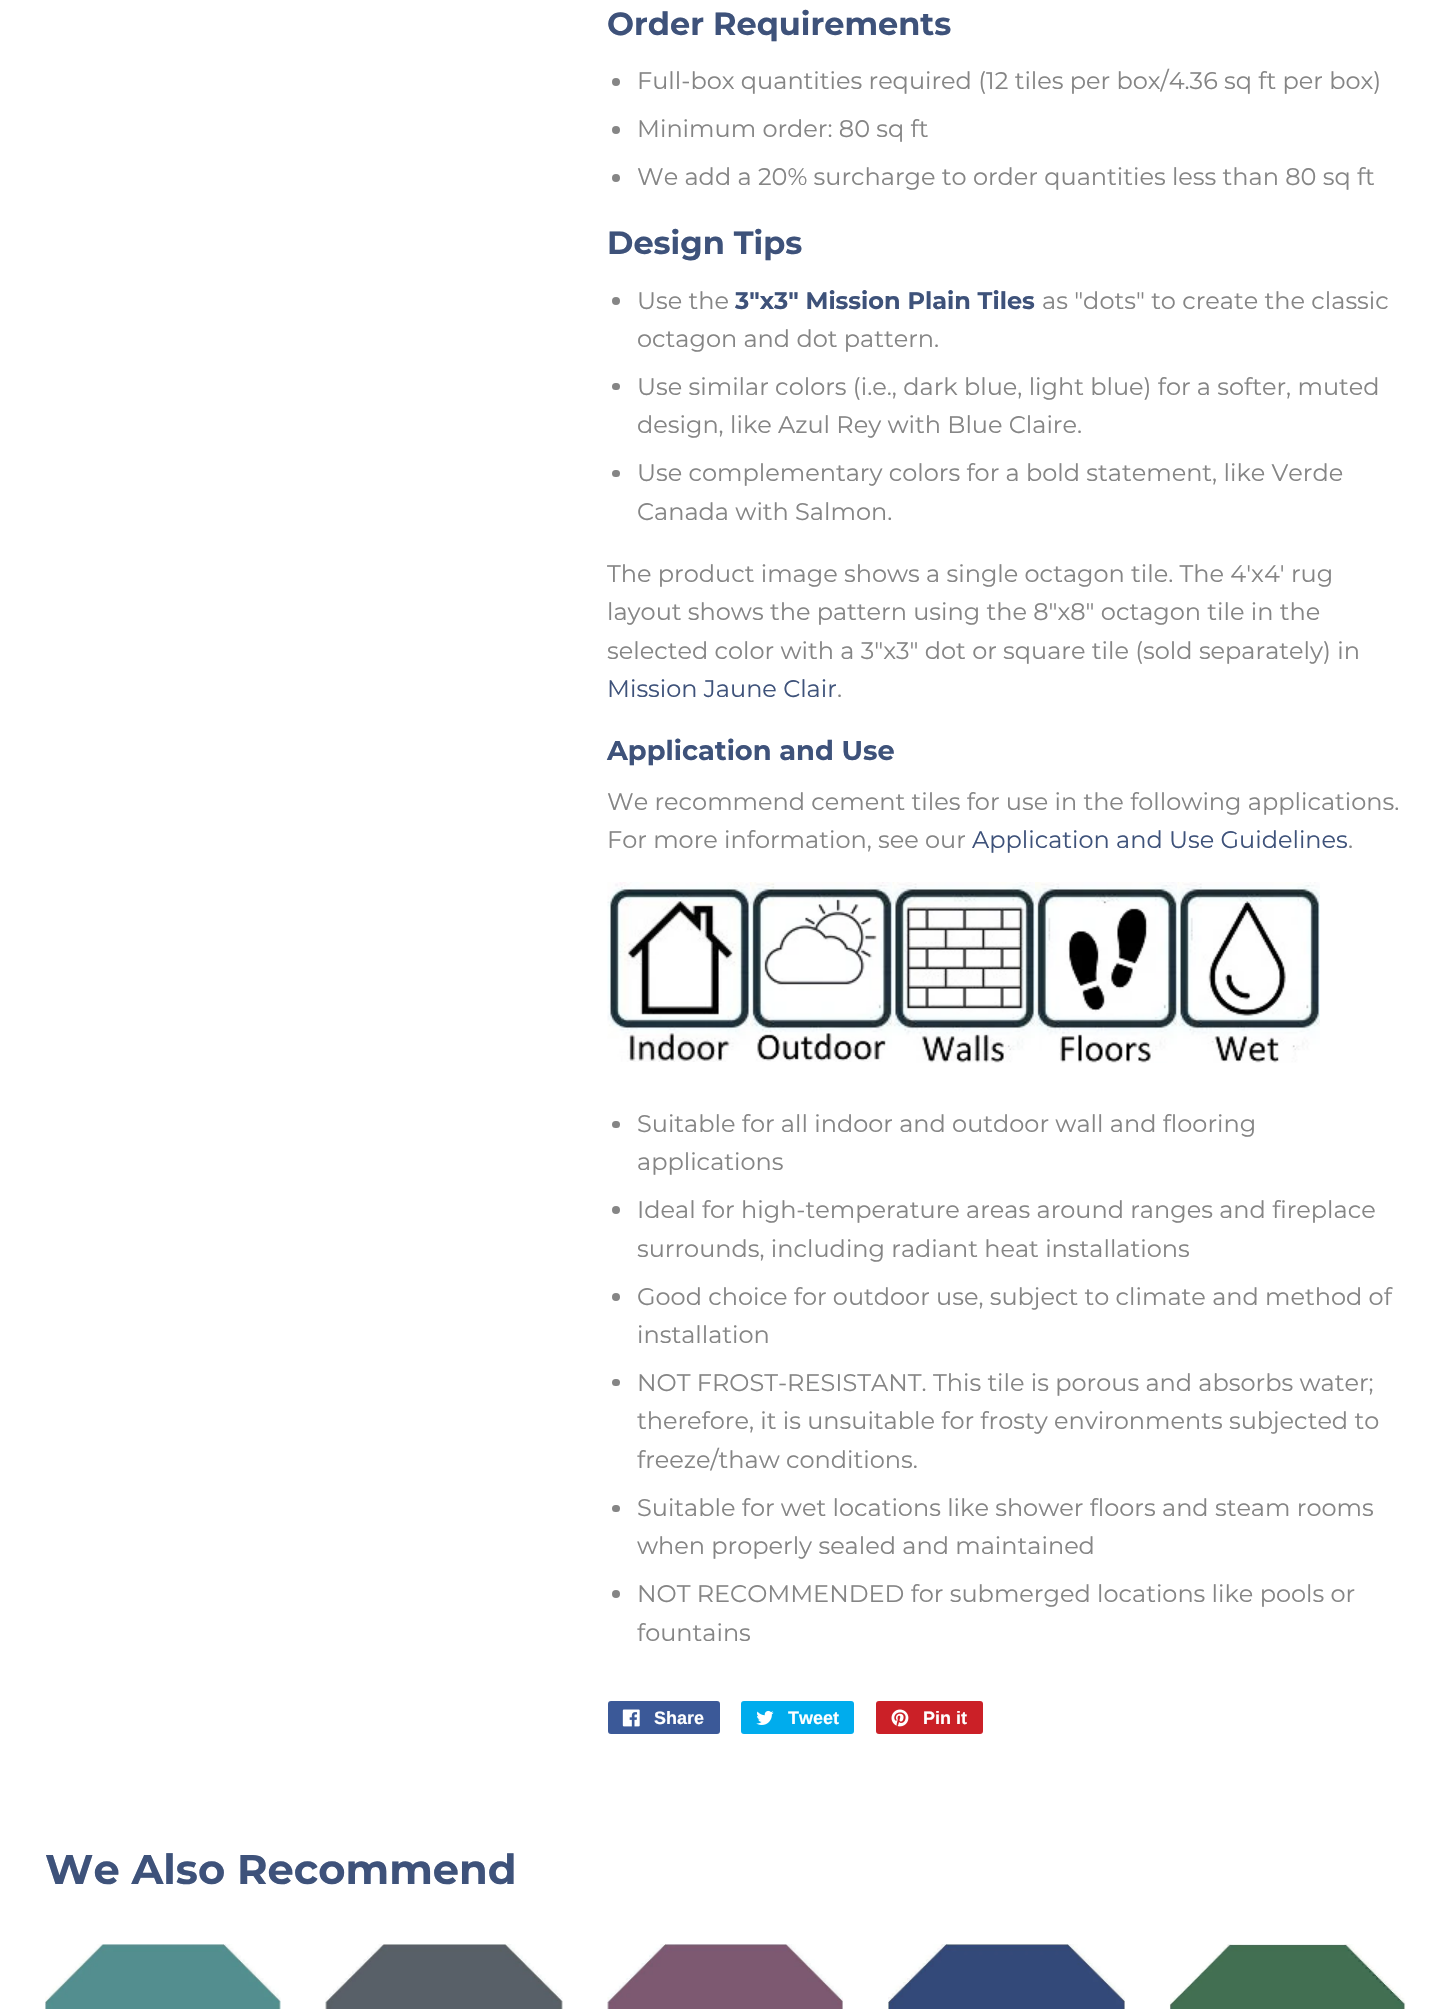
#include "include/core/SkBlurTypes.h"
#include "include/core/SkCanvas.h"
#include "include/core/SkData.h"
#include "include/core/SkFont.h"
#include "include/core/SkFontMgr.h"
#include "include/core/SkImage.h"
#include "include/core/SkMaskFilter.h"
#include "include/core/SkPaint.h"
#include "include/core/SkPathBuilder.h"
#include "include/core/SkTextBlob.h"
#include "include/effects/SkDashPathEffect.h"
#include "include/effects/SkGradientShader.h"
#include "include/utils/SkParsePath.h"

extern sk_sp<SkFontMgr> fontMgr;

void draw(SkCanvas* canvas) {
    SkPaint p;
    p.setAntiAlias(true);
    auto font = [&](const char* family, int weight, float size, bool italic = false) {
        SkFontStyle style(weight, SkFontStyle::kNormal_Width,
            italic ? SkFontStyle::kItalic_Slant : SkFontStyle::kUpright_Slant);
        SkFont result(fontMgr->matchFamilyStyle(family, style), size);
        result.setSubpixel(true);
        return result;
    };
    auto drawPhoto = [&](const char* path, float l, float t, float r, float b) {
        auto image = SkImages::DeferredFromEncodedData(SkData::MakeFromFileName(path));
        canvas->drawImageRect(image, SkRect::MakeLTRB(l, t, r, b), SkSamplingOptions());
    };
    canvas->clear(0xFFFFFFFF);
    auto font1 = font("Montserrat", 700, 32);
    p.setColor(0xFF3E527A);
    canvas->drawString("Order Requirements", 607, 35, font1, p);
    p.setColor(0xFF858585);
    canvas->drawCircle(616, 82, 4, p);
    auto font2 = font("Montserrat", 400, 24);
    canvas->drawString("Full-box quantities required (12 tiles per box/4.36 sq ft per box)", 637, 89, font2, p);
    canvas->drawCircle(616, 130, 4, p);
    canvas->drawString("Minimum order: 80 sq ft", 637, 137, font2, p);
    canvas->drawCircle(616, 178, 4, p);
    canvas->drawString("We add a 20% surcharge to order quantities less than 80 sq ft", 637, 185, font2, p);
    p.setColor(0xFF3E527A);
    canvas->drawString("Design Tips", 607, 254, font1, p);
    p.setColor(0xFF858585);
    canvas->drawCircle(616, 301, 4, p);
    canvas->drawString("Use the", 637, 309, font2, p);
    auto font3 = font("Montserrat", 700, 24);
    p.setColor(0xFF3E527A);
    canvas->drawString("3\"x3\" Mission Plain Tiles", 735, 309, font3, p);
    p.setColor(0xFF858585);
    canvas->drawString("as \"dots\" to create the classic", 1042, 309, font2, p);
    canvas->drawString("octagon and dot pattern.", 637, 347, font2, p);
    canvas->drawRoundRect(SkRect::MakeLTRB(612, 383, 620, 390), 3.5f, 3.5f, p);
    canvas->drawString("Use similar colors (i.e., dark blue, light blue) for a softer, muted", 637, 395, font2, p);
    canvas->drawString("design, like Azul Rey with Blue Claire.", 637, 433, font2, p);
    canvas->drawRoundRect(SkRect::MakeLTRB(612, 470, 620, 477), 3.5f, 3.5f, p);
    {
        const struct { const char* s; float x, y; } items[] = {
            {"Use complementary colors for a bold statement, like Verde", 637, 481},
            {"Canada with Salmon.", 637, 520},
            {"The product image shows a single octagon tile. The 4'x4' rug", 607, 582},
            {"layout shows the pattern using the 8\"x8\" octagon tile in the", 607, 620},
            {"selected color with a 3\"x3\" dot or square tile (sold separately) in", 607, 659},
        };
        for (auto [s, x, y] : items) {
            canvas->drawString(s, x, y, font2, p);
        }
    }
    p.setColor(0xFF3E527A);
    canvas->drawString("Mission Jaune Clair", 607, 697, font2, p);
    p.setColor(0xFF858585);
    canvas->drawString(".", 837, 697, font2, p);
    auto font4 = font("Montserrat", 700, 27.25f);
    p.setColor(0xFF3E527A);
    canvas->drawString("Application and Use", 607, 760, font4, p);
    p.setColor(0xFF858585);
    canvas->drawString("We recommend cement tiles for use in the following applications.", 607, 810, font2, p);
    canvas->drawString("For more information, see our", 607, 848, font2, p);
    p.setColor(0xFF3E527A);
    canvas->drawString("Application and Use Guidelines", 972, 848, font2, p);
    p.setColor(0xFF858585);
    canvas->drawString(".", 1348, 848, font2, p);
    drawPhoto("media/1.png", 607, 882, 750, 1062);
    drawPhoto("media/2.png", 750, 882, 893, 1062);
    drawPhoto("media/3.png", 892, 882, 1035, 1063);
    drawPhoto("media/4.png", 1035, 882, 1178, 1063);
    drawPhoto("media/5.png", 1177, 882, 1320, 1063);
    canvas->drawRoundRect(SkRect::MakeLTRB(612, 1121, 620, 1128), 3.5f, 3.5f, p);
    canvas->drawString("Suitable for all indoor and outdoor wall and flooring", 637, 1132, font2, p);
    canvas->drawString("applications", 637, 1170, font2, p);
    canvas->drawCircle(616, 1210, 4, p);
    canvas->drawString("Ideal for high-temperature areas around ranges and fireplace", 637, 1218, font2, p);
    canvas->drawString("surrounds, including radiant heat installations", 637, 1257, font2, p);
    canvas->drawCircle(616, 1297, 4, p);
    canvas->drawString("Good choice for outdoor use, subject to climate and method of", 637, 1305, font2, p);
    canvas->drawString("installation", 637, 1343, font2, p);
    canvas->drawRoundRect(SkRect::MakeLTRB(612, 1379, 620, 1386), 3.5f, 3.5f, p);
    {
        const struct { const char* s; float x, y; } items[] = {
            {"NOT FROST-RESISTANT. This tile is porous and absorbs water;", 637, 1391},
            {"therefore, it is unsuitable for frosty environments subjected to", 637, 1429},
            {"freeze/thaw conditions.", 637, 1468},
        };
        for (auto [s, x, y] : items) {
            canvas->drawString(s, x, y, font2, p);
        }
    }
    canvas->drawRoundRect(SkRect::MakeLTRB(612, 1505, 620, 1512), 3.5f, 3.5f, p);
    canvas->drawString("Suitable for wet locations like shower floors and steam rooms", 637, 1516, font2, p);
    canvas->drawString("when properly sealed and maintained", 637, 1554, font2, p);
    canvas->drawCircle(616, 1594, 4, p);
    canvas->drawString("NOT RECOMMENDED for submerged locations like pools or", 637, 1602, font2, p);
    canvas->drawString("fountains", 637, 1641, font2, p);
    p.setColor(0xFF3B5998);
    canvas->drawRoundRect(SkRect::MakeLTRB(608, 1701, 720, 1734), 3, 3, p);
    drawPhoto("media/6.png", 622, 1709, 640, 1727);
    auto font5 = font("Liberation Sans", 700, 18);
    p.setColor(0xFFFFFFFF);
    canvas->drawString("Share", 654, 1724, font5, p);
    p.setColor(0xFF00ACED);
    canvas->drawRoundRect(SkRect::MakeLTRB(741, 1701, 854, 1734), 3, 3, p);
    drawPhoto("media/7.png", 756, 1710, 774, 1725);
    p.setColor(0xFFFFFFFF);
    canvas->drawString("Tweet", 788, 1724, font5, p);
    p.setColor(0xFFCB2027);
    canvas->drawRoundRect(SkRect::MakeLTRB(876, 1701, 983, 1734), 3, 3, p);
    drawPhoto("media/8.png", 891, 1709, 909, 1727);
    p.setColor(0xFFFFFFFF);
    canvas->drawString("Pin it", 923, 1724, font5, p);
    auto font6 = font("Montserrat", 700, 41.6f);
    p.setColor(0xFF3E527A);
    canvas->drawString("We Also Recommend", 45, 1884, font6, p);
    drawPhoto("media/9.png", 45, 1944, 281, 2009);
    drawPhoto("media/10.png", 325, 1944, 563, 2009);
    drawPhoto("media/11.png", 607, 1944, 843, 2009);
    drawPhoto("media/12.png", 888, 1944, 1125, 2009);
    drawPhoto("media/13.png", 1169, 1944, 1406, 2009);
}
